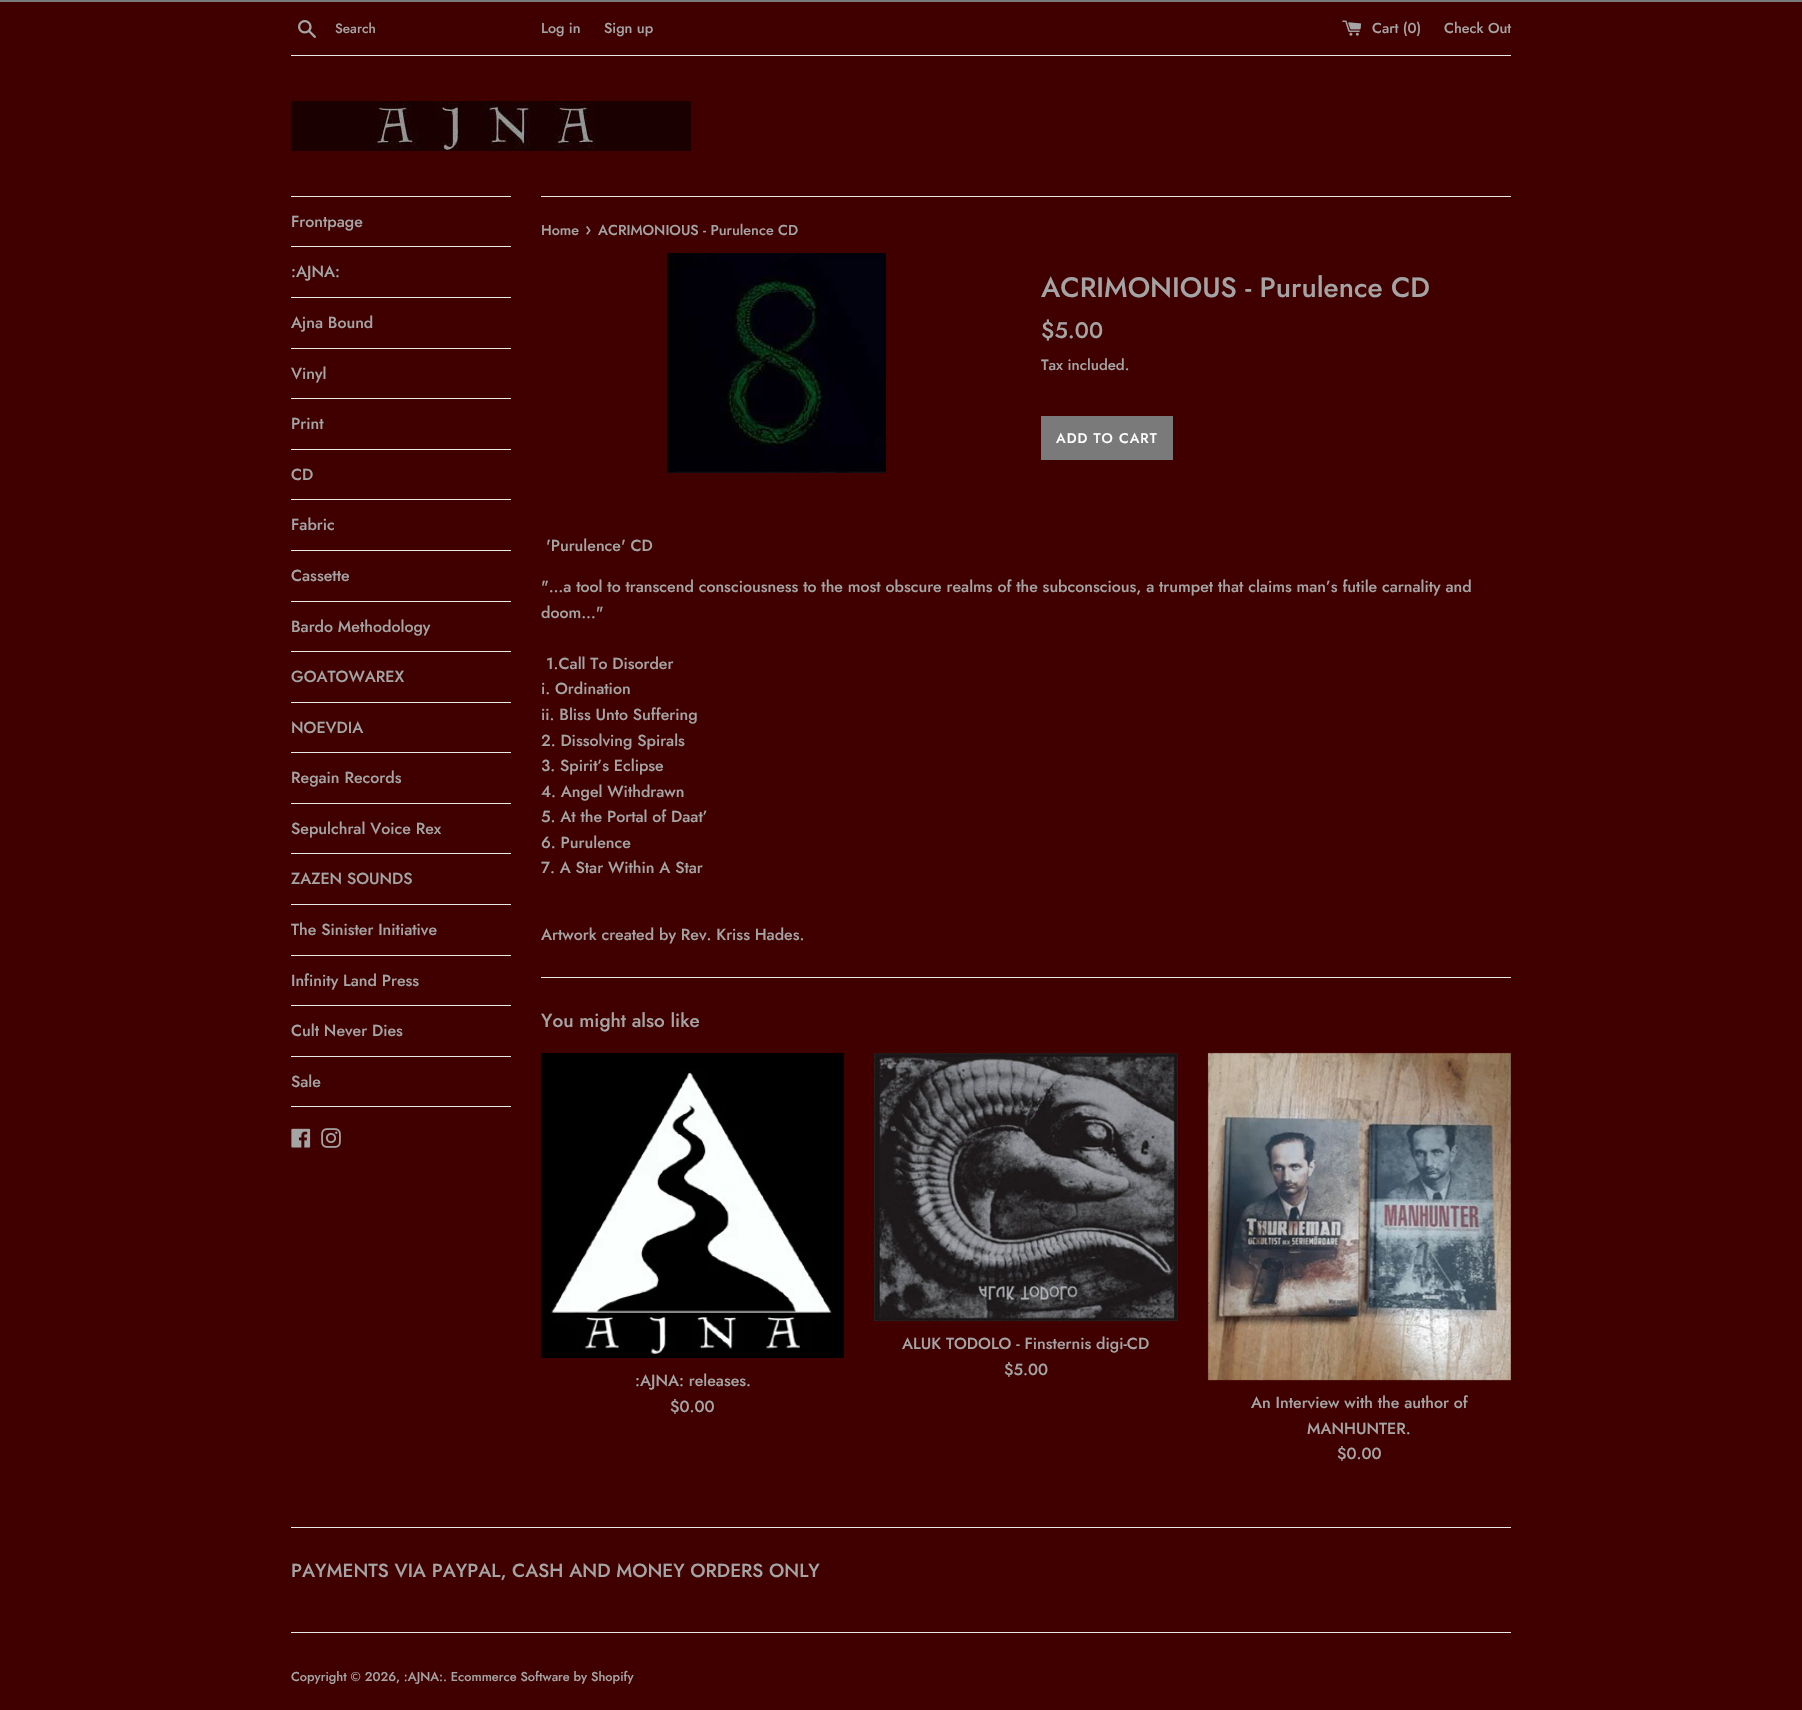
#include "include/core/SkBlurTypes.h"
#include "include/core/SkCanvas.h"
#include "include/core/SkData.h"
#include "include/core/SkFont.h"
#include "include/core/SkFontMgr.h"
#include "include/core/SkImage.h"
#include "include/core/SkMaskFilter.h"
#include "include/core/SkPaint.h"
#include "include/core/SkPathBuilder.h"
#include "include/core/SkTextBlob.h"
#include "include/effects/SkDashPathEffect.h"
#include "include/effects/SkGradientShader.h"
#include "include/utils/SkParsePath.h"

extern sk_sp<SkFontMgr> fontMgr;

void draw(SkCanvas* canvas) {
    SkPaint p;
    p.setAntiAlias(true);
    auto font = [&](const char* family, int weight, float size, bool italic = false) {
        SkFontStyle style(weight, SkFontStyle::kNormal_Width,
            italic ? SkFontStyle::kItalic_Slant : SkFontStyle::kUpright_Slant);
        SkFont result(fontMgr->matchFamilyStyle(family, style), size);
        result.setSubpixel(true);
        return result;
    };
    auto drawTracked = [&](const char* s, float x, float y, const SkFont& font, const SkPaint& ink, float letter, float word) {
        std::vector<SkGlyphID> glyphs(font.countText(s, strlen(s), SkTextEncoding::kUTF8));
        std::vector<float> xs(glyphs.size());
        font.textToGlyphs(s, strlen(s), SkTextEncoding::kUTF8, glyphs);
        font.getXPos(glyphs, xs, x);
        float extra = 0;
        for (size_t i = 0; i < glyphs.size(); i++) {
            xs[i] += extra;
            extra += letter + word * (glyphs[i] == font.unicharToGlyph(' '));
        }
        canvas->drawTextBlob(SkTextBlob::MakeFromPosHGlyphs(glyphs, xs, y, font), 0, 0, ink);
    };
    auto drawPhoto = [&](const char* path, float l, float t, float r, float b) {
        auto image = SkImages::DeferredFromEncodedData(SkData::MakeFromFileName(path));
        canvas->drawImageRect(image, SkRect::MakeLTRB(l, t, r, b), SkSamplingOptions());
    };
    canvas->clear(0xFF400000);
    p.setColor(0xFF7B7A7A);
    canvas->drawRect(SkRect::MakeLTRB(0, 0, 1802, 2), p);
    drawPhoto("media/1.png", 298, 20, 316, 38);
    auto font1 = font("Jost", 500, 13.5f);
    p.setColor(0xFFA4A4A4);
    canvas->drawString("Search", 335, 33, font1, p);
    auto font2 = font("Jost", 500, 14.4f);
    canvas->drawString("Log in", 541, 33, font2, p);
    canvas->drawString("Sign up", 604, 33, font2, p);
    drawPhoto("media/2.png", 1342, 20, 1362, 36);
    canvas->drawString("Cart (0)", 1372, 33, font2, p);
    canvas->drawString("Check Out", 1444, 33, font2, p);
    p.setColor(0xFFE8E8E8);
    canvas->drawRect(SkRect::MakeLTRB(291, 55, 1511, 56), p);
    drawPhoto("media/3.png", 291, 101, 691, 151);
    canvas->drawRect(SkRect::MakeLTRB(291, 196, 511, 197), p);
    canvas->drawRect(SkRect::MakeLTRB(291, 246, 511, 247), p);
    auto font3 = font("Jost", 500, 16);
    p.setColor(0xFFA4A4A4);
    canvas->drawString("Frontpage", 291, 227, font3, p);
    p.setColor(0xFFE8E8E8);
    canvas->drawRect(SkRect::MakeLTRB(291, 297, 511, 298), p);
    p.setColor(0xFFA4A4A4);
    canvas->drawString(":AJNA:", 291, 277, font3, p);
    p.setColor(0xFFE8E8E8);
    canvas->drawRect(SkRect::MakeLTRB(291, 348, 511, 349), p);
    p.setColor(0xFFA4A4A4);
    canvas->drawString("Ajna Bound", 291, 328, font3, p);
    p.setColor(0xFFE8E8E8);
    canvas->drawRect(SkRect::MakeLTRB(291, 398, 511, 399), p);
    p.setColor(0xFFA4A4A4);
    canvas->drawString("Vinyl", 291, 379, font3, p);
    p.setColor(0xFFE8E8E8);
    canvas->drawRect(SkRect::MakeLTRB(291, 449, 511, 450), p);
    p.setColor(0xFFA4A4A4);
    canvas->drawString("Print", 291, 429, font3, p);
    p.setColor(0xFFE8E8E8);
    canvas->drawRect(SkRect::MakeLTRB(291, 499, 511, 500), p);
    p.setColor(0xFFA4A4A4);
    canvas->drawString("CD", 291, 480, font3, p);
    p.setColor(0xFFE8E8E8);
    canvas->drawRect(SkRect::MakeLTRB(291, 550, 511, 551), p);
    p.setColor(0xFFA4A4A4);
    canvas->drawString("Fabric", 291, 530, font3, p);
    p.setColor(0xFFE8E8E8);
    canvas->drawRect(SkRect::MakeLTRB(291, 601, 511, 602), p);
    p.setColor(0xFFA4A4A4);
    canvas->drawString("Cassette", 291, 581, font3, p);
    p.setColor(0xFFE8E8E8);
    canvas->drawRect(SkRect::MakeLTRB(291, 651, 511, 652), p);
    p.setColor(0xFFA4A4A4);
    canvas->drawString("Bardo Methodology", 291, 632, font3, p);
    p.setColor(0xFFE8E8E8);
    canvas->drawRect(SkRect::MakeLTRB(291, 702, 511, 703), p);
    p.setColor(0xFFA4A4A4);
    canvas->drawString("GOATOWAREX", 291, 682, font3, p);
    p.setColor(0xFFE8E8E8);
    canvas->drawRect(SkRect::MakeLTRB(291, 752, 511, 753), p);
    p.setColor(0xFFA4A4A4);
    canvas->drawString("NOEVDIA", 291, 733, font3, p);
    p.setColor(0xFFE8E8E8);
    canvas->drawRect(SkRect::MakeLTRB(291, 803, 511, 804), p);
    p.setColor(0xFFA4A4A4);
    canvas->drawString("Regain Records", 291, 783, font3, p);
    p.setColor(0xFFE8E8E8);
    canvas->drawRect(SkRect::MakeLTRB(291, 853, 511, 854), p);
    p.setColor(0xFFA4A4A4);
    canvas->drawString("Sepulchral Voice Rex", 291, 834, font3, p);
    p.setColor(0xFFE8E8E8);
    canvas->drawRect(SkRect::MakeLTRB(291, 904, 511, 905), p);
    p.setColor(0xFFA4A4A4);
    canvas->drawString("ZAZEN SOUNDS", 291, 884, font3, p);
    p.setColor(0xFFE8E8E8);
    canvas->drawRect(SkRect::MakeLTRB(291, 955, 511, 956), p);
    p.setColor(0xFFA4A4A4);
    canvas->drawString("The Sinister Initiative", 291, 935, font3, p);
    p.setColor(0xFFE8E8E8);
    canvas->drawRect(SkRect::MakeLTRB(291, 1005, 511, 1006), p);
    p.setColor(0xFFA4A4A4);
    canvas->drawString("Infinity Land Press", 291, 986, font3, p);
    p.setColor(0xFFE8E8E8);
    canvas->drawRect(SkRect::MakeLTRB(291, 1056, 511, 1057), p);
    p.setColor(0xFFA4A4A4);
    canvas->drawString("Cult Never Dies", 291, 1036, font3, p);
    p.setColor(0xFFE8E8E8);
    canvas->drawRect(SkRect::MakeLTRB(291, 1106, 511, 1107), p);
    p.setColor(0xFFA4A4A4);
    canvas->drawString("Sale", 291, 1087, font3, p);
    drawPhoto("media/4.png", 291, 1128, 311, 1148);
    drawPhoto("media/5.png", 321, 1128, 341, 1148);
    p.setColor(0xFFE8E8E8);
    canvas->drawRect(SkRect::MakeLTRB(541, 196, 1511, 197), p);
    p.setColor(0xFFA4A4A4);
    canvas->drawString("Home", 541, 235, font2, p);
    auto font4 = font("Jost", 500, 18);
    canvas->drawString("›", 585, 235, font4, p);
    canvas->drawString("ACRIMONIOUS - Purulence CD", 598, 235, font2, p);
    drawPhoto("media/6.png", 667, 253, 886, 473);
    auto font5 = font("Jost", 500, 28);
    canvas->drawString("ACRIMONIOUS - Purulence CD", 1041, 297, font5, p);
    auto font6 = font("Jost", 500, 22.5f);
    canvas->drawString("$5.00", 1041, 338, font6, p);
    auto font7 = font("Jost", 500, 15);
    canvas->drawString("Tax included.", 1041, 370, font7, p);
    p.setColor(0xFF7B7A7A);
    canvas->drawRect(SkRect::MakeLTRB(1041, 416, 1173, 460), p);
    auto font8 = font("Jost", 500, 14);
    p.setColor(0xFFFFFFFF);
    drawTracked("ADD TO CART", 1056, 443, font8, p, 1, 0);
    p.setColor(0xFFA4A4A4);
    {
        const struct { const char* s; float x, y; } items[] = {
            {"'Purulence' CD", 546, 551},
            {"\"…a tool to transcend consciousness to the most obscure realms of the subconscious, a trumpet that claims man’s futile carnality and", 541, 592},
            {"doom…\"", 541, 618},
            {"1.Call To Disorder", 546, 669},
            {"i. Ordination", 541, 694},
            {"ii. Bliss Unto Suffering", 541, 720},
            {"2. Dissolving Spirals", 541, 746},
            {"3. Spirit’s Eclipse", 541, 771},
            {"4. Angel Withdrawn", 541, 797},
            {"5. At the Portal of Daat’", 541, 822},
            {"6. Purulence", 541, 848},
            {"7. A Star Within A Star", 541, 873},
            {"Artwork created by Rev. Kriss Hades.", 541, 940},
        };
        for (auto [s, x, y] : items) {
            canvas->drawString(s, x, y, font3, p);
        }
    }
    p.setColor(0xFFE8E8E8);
    canvas->drawRect(SkRect::MakeLTRB(541, 977, 1511, 978), p);
    auto font9 = font("Jost", 500, 19);
    p.setColor(0xFFA4A4A4);
    canvas->drawString("You might also like", 541, 1027, font9, p);
    drawPhoto("media/7.png", 874, 1053, 1178, 1322);
    canvas->drawString("ALUK TODOLO - Finsternis digi-CD", 902, 1349, font3, p);
    canvas->drawString("$5.00", 1004, 1375, font3, p);
    drawPhoto("media/8.png", 541, 1053, 844, 1358);
    canvas->drawString(":AJNA: releases.", 635, 1386, font3, p);
    canvas->drawString("$0.00", 670, 1412, font3, p);
    drawPhoto("media/9.png", 1207, 1052, 1511, 1381);
    {
        const struct { const char* s; float x, y; } items[] = {
            {"An Interview with the author of", 1251, 1408},
            {"MANHUNTER.", 1307, 1434},
            {"$0.00", 1337, 1459},
        };
        for (auto [s, x, y] : items) {
            canvas->drawString(s, x, y, font3, p);
        }
    }
    p.setColor(0xFFE8E8E8);
    canvas->drawRect(SkRect::MakeLTRB(291, 1527, 1511, 1528), p);
    p.setColor(0xFFA4A4A4);
    canvas->drawString("PAYMENTS VIA PAYPAL, CASH AND MONEY ORDERS ONLY", 291, 1577, font9, p);
    p.setColor(0xFFE8E8E8);
    canvas->drawRect(SkRect::MakeLTRB(291, 1632, 1511, 1633), p);
    auto font10 = font("Jost", 500, 12.8f);
    p.setColor(0xFFA4A4A4);
    canvas->drawString("Copyright © 2026, :AJNA:. Ecommerce Software by Shopify", 291, 1681, font10, p);
}
